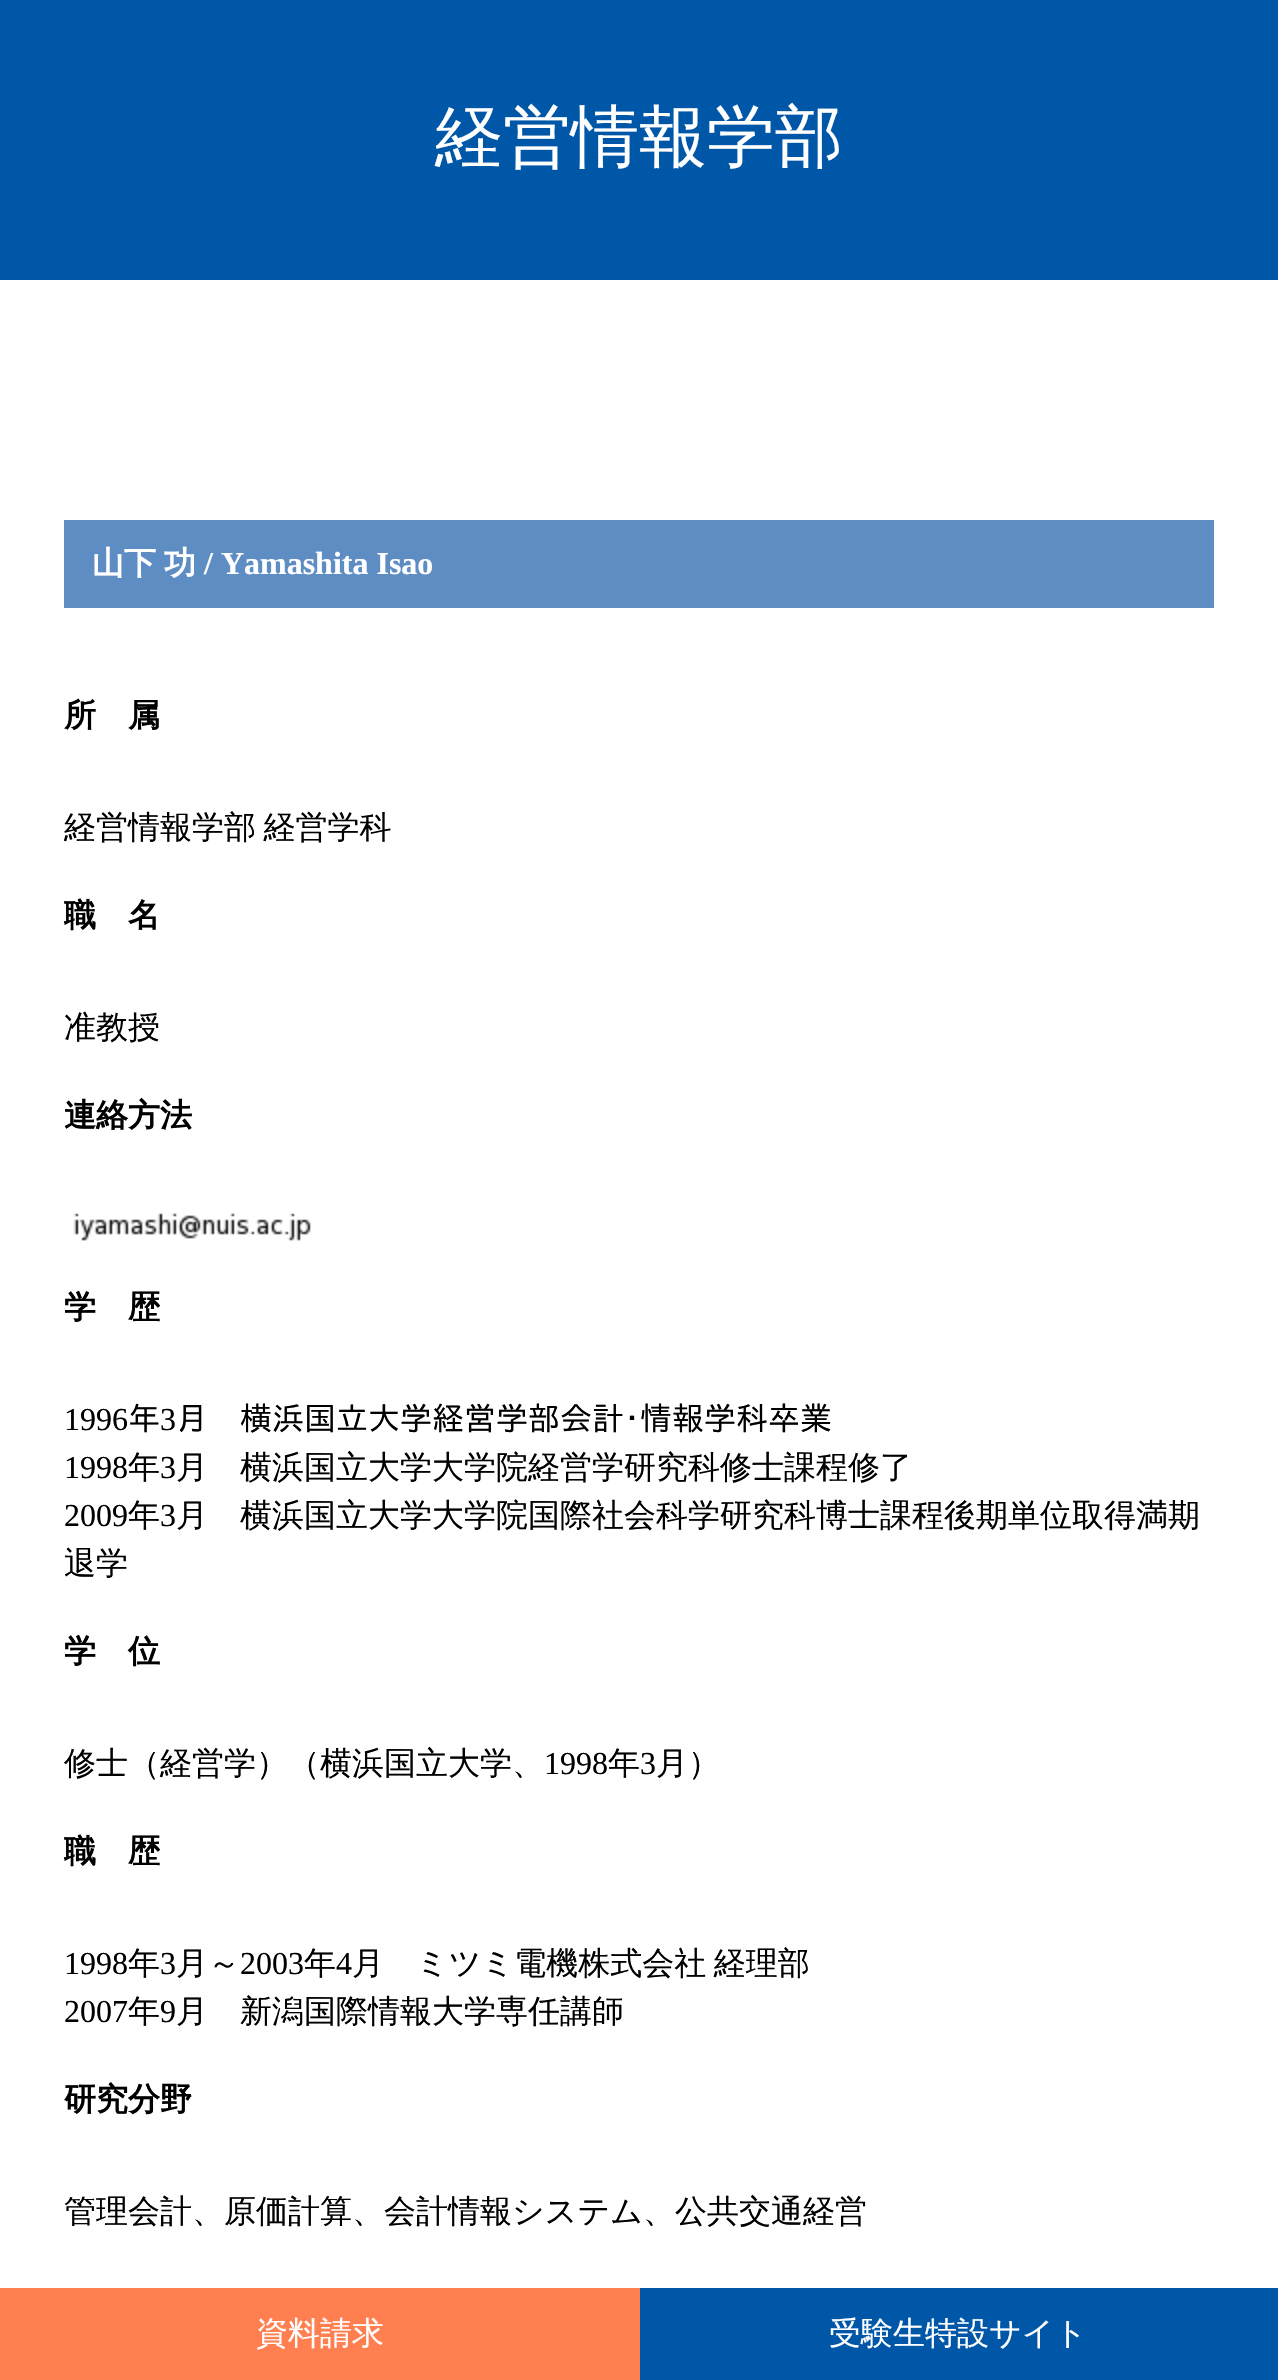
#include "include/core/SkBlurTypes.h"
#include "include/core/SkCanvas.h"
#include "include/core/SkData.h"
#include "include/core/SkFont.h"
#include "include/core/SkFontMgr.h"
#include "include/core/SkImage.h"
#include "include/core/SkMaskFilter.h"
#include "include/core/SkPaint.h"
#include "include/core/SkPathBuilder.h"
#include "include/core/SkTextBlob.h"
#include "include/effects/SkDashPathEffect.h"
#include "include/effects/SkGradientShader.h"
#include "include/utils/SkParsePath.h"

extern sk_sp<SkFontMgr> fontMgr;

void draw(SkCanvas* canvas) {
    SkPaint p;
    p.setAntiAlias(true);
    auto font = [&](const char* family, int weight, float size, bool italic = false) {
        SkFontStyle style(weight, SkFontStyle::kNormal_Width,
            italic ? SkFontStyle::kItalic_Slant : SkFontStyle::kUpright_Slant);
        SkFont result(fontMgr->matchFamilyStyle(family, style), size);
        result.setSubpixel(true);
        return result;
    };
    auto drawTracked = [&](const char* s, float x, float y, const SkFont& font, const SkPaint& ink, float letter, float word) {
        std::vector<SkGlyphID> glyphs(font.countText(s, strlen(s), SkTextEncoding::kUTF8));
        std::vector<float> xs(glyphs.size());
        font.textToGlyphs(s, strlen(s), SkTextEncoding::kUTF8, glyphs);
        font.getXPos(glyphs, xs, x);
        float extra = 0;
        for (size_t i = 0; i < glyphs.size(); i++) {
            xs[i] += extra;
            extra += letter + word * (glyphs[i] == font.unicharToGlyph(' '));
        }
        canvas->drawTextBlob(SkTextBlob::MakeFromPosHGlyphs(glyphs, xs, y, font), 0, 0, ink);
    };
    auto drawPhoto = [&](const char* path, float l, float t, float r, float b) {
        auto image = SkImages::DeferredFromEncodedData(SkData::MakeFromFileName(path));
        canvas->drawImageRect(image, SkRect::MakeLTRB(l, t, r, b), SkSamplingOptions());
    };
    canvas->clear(0xFFFFFFFF);
    p.setColor(0xFF0057A7);
    canvas->drawRect(SkRect::MakeLTRB(0, 0, 1278, 280), p);
    auto font1 = font("WenQuanYi Zen Hei", 500, 68);
    p.setColor(0xFFFFFFFF);
    canvas->drawString("経営情報学部", 435, 160, font1, p);
    p.setColor(0xFF5E8DC3);
    canvas->drawRect(SkRect::MakeLTRB(64, 520, 1214, 608), p);
    auto font2 = font("WenQuanYi Zen Hei", 700, 32);
    p.setColor(0xFFFFFFFF);
    canvas->drawString("山下", 92, 574, font2, p);
    canvas->drawString("功", 164, 574, font2, p);
    auto font3 = font("Liberation Serif", 700, 32);
    canvas->drawString("/ Yamashita Isao", 204, 574, font3, p);
    p.setColor(0xFF000000);
    canvas->drawString("所　属", 64, 726, font2, p);
    auto font4 = font("WenQuanYi Zen Hei", 500, 32);
    drawTracked("経営情報学部 経営学科", 64, 838, font4, p, 0, -2);
    canvas->drawString("職　名", 64, 926, font2, p);
    canvas->drawString("准教授", 64, 1038, font4, p);
    canvas->drawString("連絡方法", 64, 1126, font2, p);
    drawPhoto("media/1.png", 73, 1213, 311, 1241);
    canvas->drawString("学　歴", 64, 1318, font2, p);
    auto font5 = font("Liberation Serif", 400, 32);
    canvas->drawString("1996", 64, 1430, font5, p);
    auto font6 = font("IPAPGothic", 400, 32);
    canvas->drawString("年", 128, 1430, font6, p);
    canvas->drawString("3", 160, 1430, font5, p);
    canvas->drawString("月　横浜国立大学経営学部会計･情報学科卒業", 176, 1430, font6, p);
    canvas->drawString("1998", 64, 1478, font5, p);
    canvas->drawString("年", 128, 1478, font4, p);
    canvas->drawString("3", 160, 1478, font5, p);
    canvas->drawString("月　横浜国立大学大学院経営学研究科修士課程修了", 176, 1478, font4, p);
    canvas->drawString("2009", 64, 1526, font5, p);
    canvas->drawString("年", 128, 1526, font4, p);
    canvas->drawString("3", 160, 1526, font5, p);
    canvas->drawString("月　横浜国立大学大学院国際社会科学研究科博士課程後期単位取得満期", 176, 1526, font4, p);
    canvas->drawString("退学", 64, 1574, font4, p);
    canvas->drawString("学　位", 64, 1662, font2, p);
    canvas->drawString("修士（経営学）（横浜国立大学、", 64, 1774, font4, p);
    canvas->drawString("1998", 544, 1774, font5, p);
    canvas->drawString("年", 608, 1774, font4, p);
    canvas->drawString("3", 640, 1774, font5, p);
    canvas->drawString("月）", 656, 1774, font4, p);
    canvas->drawString("職　歴", 64, 1862, font2, p);
    canvas->drawString("1998", 64, 1974, font5, p);
    canvas->drawString("年", 128, 1974, font4, p);
    canvas->drawString("3", 160, 1974, font5, p);
    canvas->drawString("月～", 176, 1974, font4, p);
    canvas->drawString("2003", 240, 1974, font5, p);
    canvas->drawString("年", 304, 1974, font4, p);
    canvas->drawString("4", 336, 1974, font5, p);
    drawTracked("月　ミツミ電機株式会社 経理部", 352, 1974, font4, p, 0, -2);
    canvas->drawString("2007", 64, 2022, font5, p);
    canvas->drawString("年", 128, 2022, font4, p);
    canvas->drawString("9", 160, 2022, font5, p);
    canvas->drawString("月　新潟国際情報大学専任講師", 176, 2022, font4, p);
    canvas->drawString("研究分野", 64, 2110, font2, p);
    canvas->drawString("管理会計、原価計算、会計情報システム、公共交通経営", 64, 2222, font4, p);
    p.setColor(0xFFFF7F50);
    canvas->drawRect(SkRect::MakeLTRB(0, 2288, 640, 2380), p);
    p.setColor(0xFFFFFFFF);
    canvas->drawString("資料請求", 256, 2344, font4, p);
    p.setColor(0xFF0057A7);
    canvas->drawRect(SkRect::MakeLTRB(640, 2288, 1278, 2380), p);
    p.setColor(0xFFFFFFFF);
    canvas->drawString("受験生特設サイト", 829, 2344, font4, p);
}
